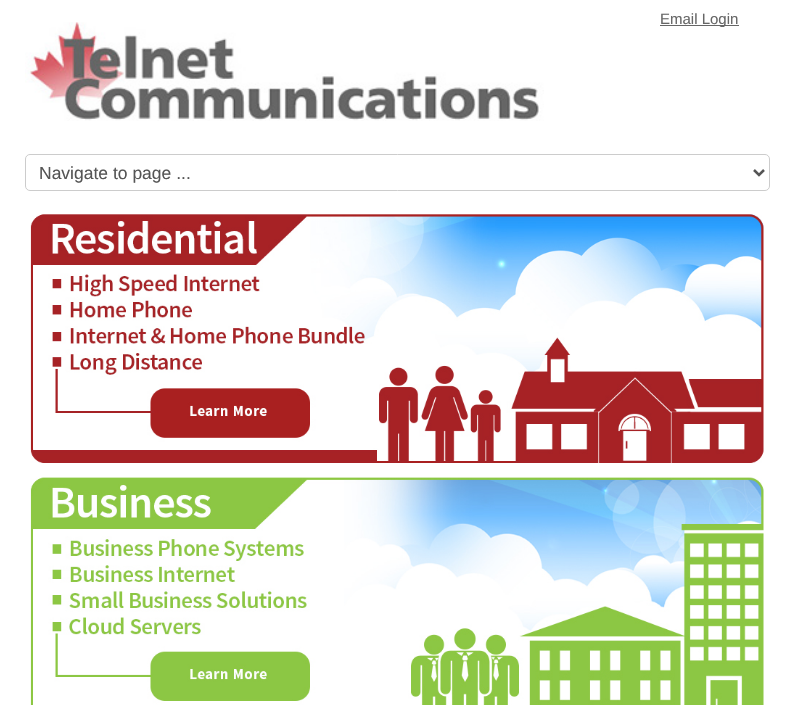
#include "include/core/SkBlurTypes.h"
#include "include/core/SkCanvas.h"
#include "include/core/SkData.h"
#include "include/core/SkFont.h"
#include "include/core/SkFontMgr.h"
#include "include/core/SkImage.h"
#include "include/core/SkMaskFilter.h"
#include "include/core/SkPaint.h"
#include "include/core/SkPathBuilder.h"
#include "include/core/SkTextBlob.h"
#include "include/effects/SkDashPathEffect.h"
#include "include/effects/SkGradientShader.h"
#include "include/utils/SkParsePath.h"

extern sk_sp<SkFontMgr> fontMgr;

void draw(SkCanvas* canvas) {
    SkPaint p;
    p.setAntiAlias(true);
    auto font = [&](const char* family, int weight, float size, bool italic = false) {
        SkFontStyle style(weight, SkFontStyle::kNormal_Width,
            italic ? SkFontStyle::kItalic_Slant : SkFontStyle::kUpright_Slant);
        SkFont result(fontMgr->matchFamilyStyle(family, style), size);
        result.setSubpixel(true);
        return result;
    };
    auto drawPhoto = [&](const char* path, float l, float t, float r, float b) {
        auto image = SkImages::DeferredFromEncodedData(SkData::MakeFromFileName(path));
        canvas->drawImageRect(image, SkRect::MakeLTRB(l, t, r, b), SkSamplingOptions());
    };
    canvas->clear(0xFFFFFFFF);
    p.setColor(0xFF666666);
    canvas->drawRect(SkRect::MakeLTRB(660, 25, 739, 26), p);
    auto font1 = font("Liberation Sans", 400, 15);
    canvas->drawString("Email Login", 660, 24, font1, p);
    drawPhoto("media/1.png", 25, 22, 544, 121);
    p.setStyle(SkPaint::kStroke_Style);
    p.setStrokeWidth(1);
    p.setColor(0xFFCCCCCC);
    canvas->drawRoundRect(SkRect::MakeLTRB(25.5f, 154.5f, 769.5f, 190.5f), 4.5f, 4.5f, p);
    p.setStrokeWidth(2.5f);
    p.setColor(0xFF555555);
    canvas->drawPath(SkPathBuilder().moveTo(754, 170).lineTo(759, 175).lineTo(764, 170).detach(), p);
    auto font2 = font("Liberation Sans", 400, 17.5f);
    p.setStyle(SkPaint::kFill_Style);
    canvas->drawString("Navigate to page ...", 39, 179, font2, p);
    drawPhoto("media/2.png", 30, 214, 764, 463);
    drawPhoto("media/3.png", 30, 477, 764, 705);
}
